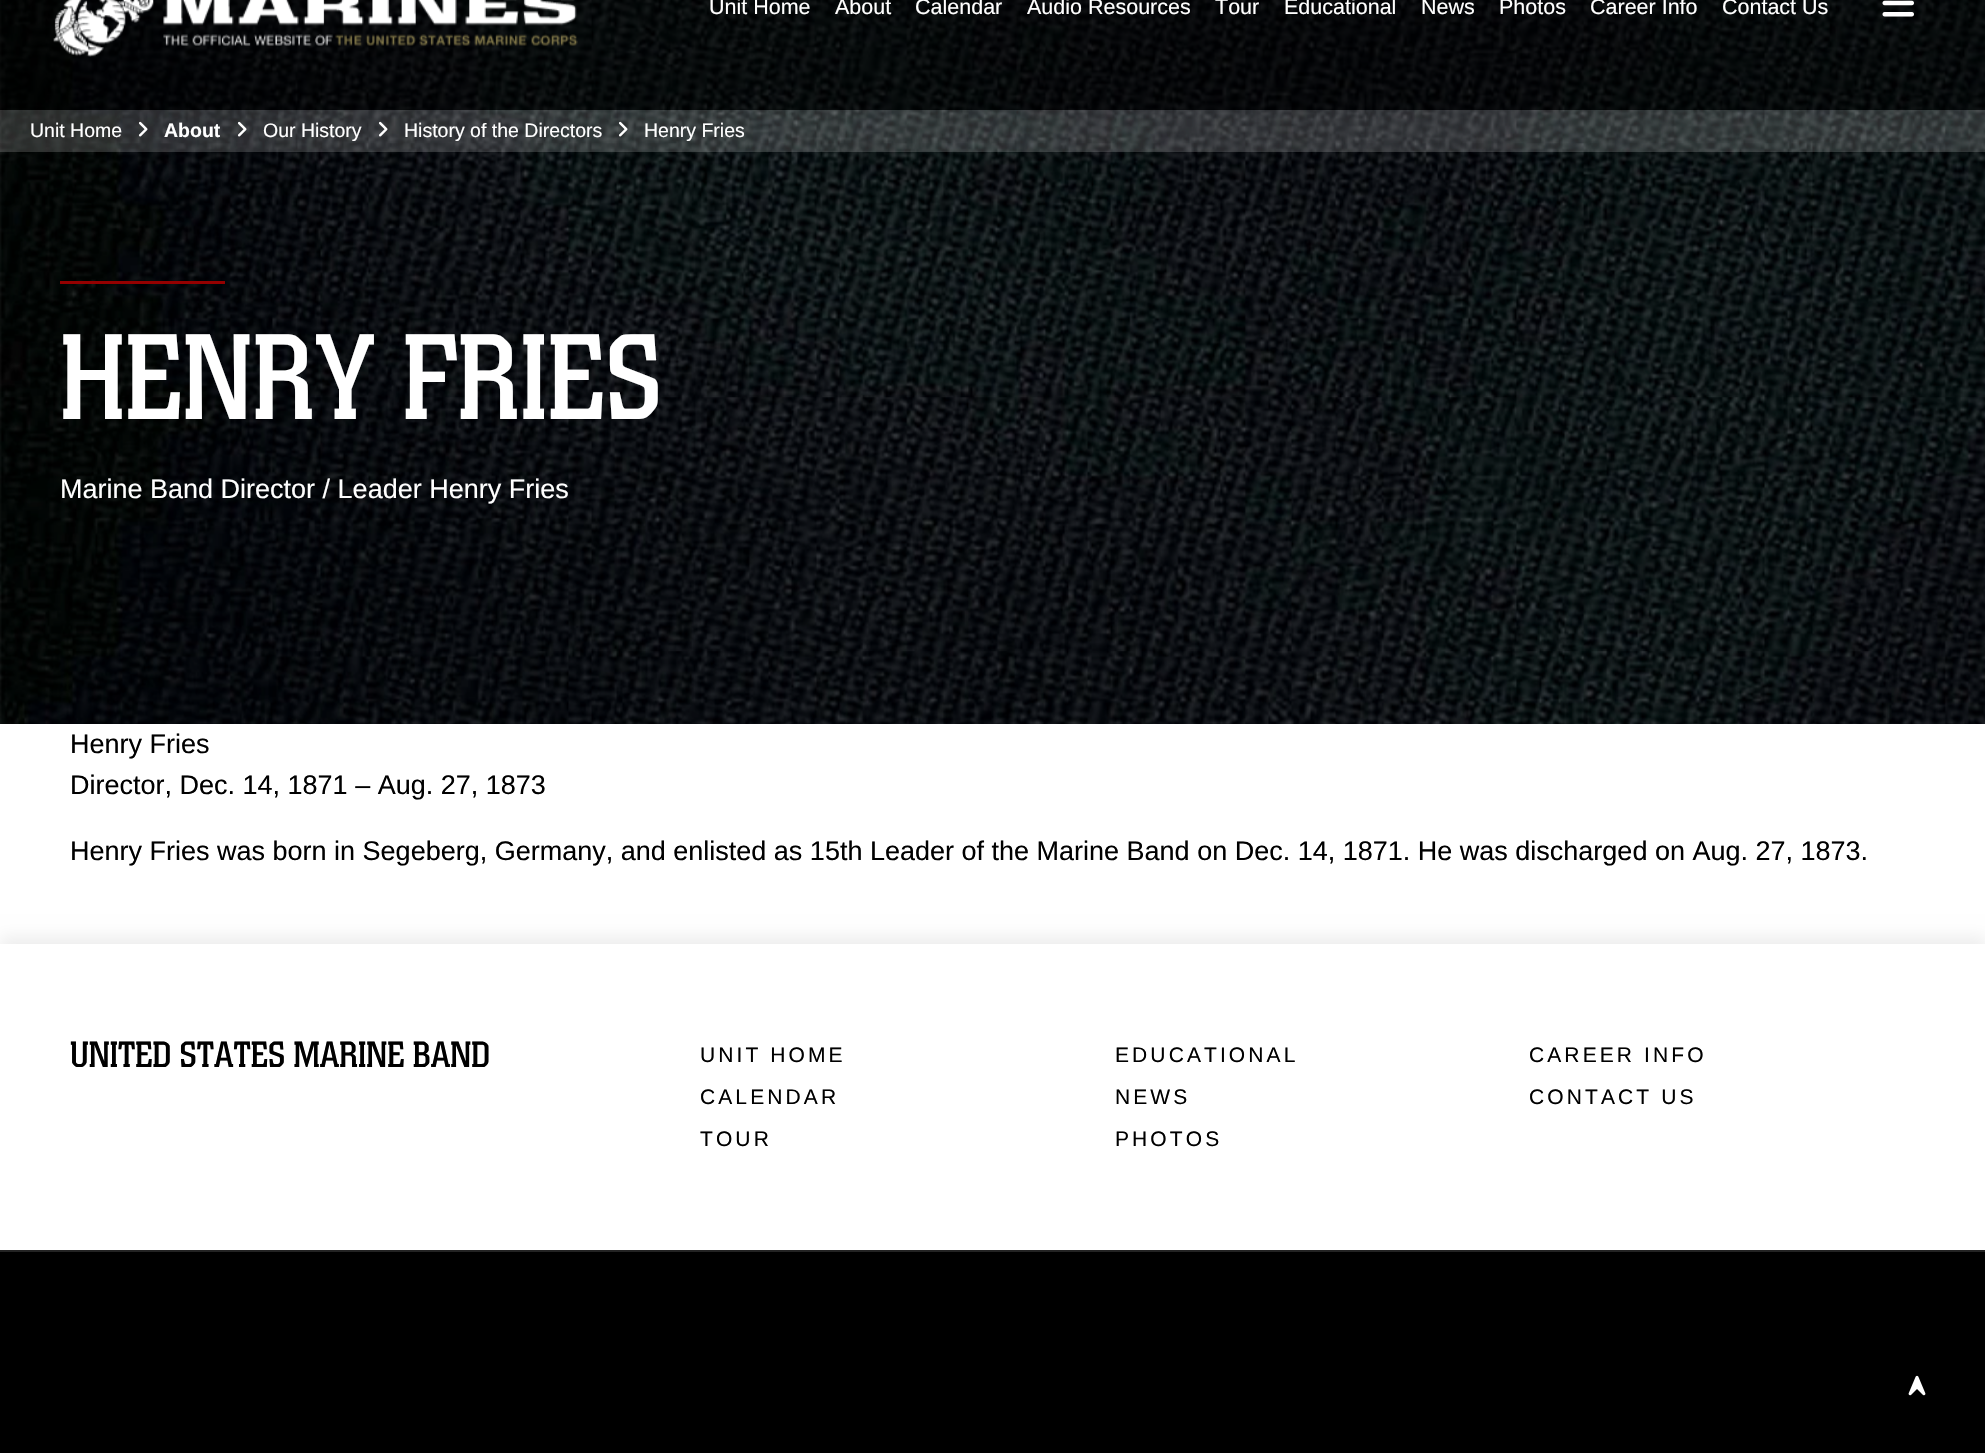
#include "include/core/SkBlurTypes.h"
#include "include/core/SkCanvas.h"
#include "include/core/SkData.h"
#include "include/core/SkFont.h"
#include "include/core/SkFontMgr.h"
#include "include/core/SkImage.h"
#include "include/core/SkMaskFilter.h"
#include "include/core/SkPaint.h"
#include "include/core/SkPathBuilder.h"
#include "include/core/SkTextBlob.h"
#include "include/effects/SkDashPathEffect.h"
#include "include/effects/SkGradientShader.h"
#include "include/utils/SkParsePath.h"

extern sk_sp<SkFontMgr> fontMgr;

void draw(SkCanvas* canvas) {
    SkPaint p;
    p.setAntiAlias(true);
    auto font = [&](const char* family, int weight, float size, bool italic = false) {
        SkFontStyle style(weight, SkFontStyle::kNormal_Width,
            italic ? SkFontStyle::kItalic_Slant : SkFontStyle::kUpright_Slant);
        SkFont result(fontMgr->matchFamilyStyle(family, style), size);
        result.setSubpixel(true);
        return result;
    };
    auto drawTracked = [&](const char* s, float x, float y, const SkFont& font, const SkPaint& ink, float letter, float word) {
        std::vector<SkGlyphID> glyphs(font.countText(s, strlen(s), SkTextEncoding::kUTF8));
        std::vector<float> xs(glyphs.size());
        font.textToGlyphs(s, strlen(s), SkTextEncoding::kUTF8, glyphs);
        font.getXPos(glyphs, xs, x);
        float extra = 0;
        for (size_t i = 0; i < glyphs.size(); i++) {
            xs[i] += extra;
            extra += letter + word * (glyphs[i] == font.unicharToGlyph(' '));
        }
        canvas->drawTextBlob(SkTextBlob::MakeFromPosHGlyphs(glyphs, xs, y, font), 0, 0, ink);
    };
    auto drawPhoto = [&](const char* path, float l, float t, float r, float b) {
        auto image = SkImages::DeferredFromEncodedData(SkData::MakeFromFileName(path));
        canvas->drawImageRect(image, SkRect::MakeLTRB(l, t, r, b), SkSamplingOptions());
    };
    canvas->clear(0xFFFFFFFF);
    drawPhoto("media/7.png", 0, 0, 1985, 724);
    p.setColor(0x80000000);
    canvas->drawRect(SkRect::MakeLTRB(0, 0, 1985, 110), p);
    drawPhoto("media/1.png", 53, 0, 578, 57);
    auto font1 = font("Liberation Sans", 400, 21.5f);
    p.setColor(0xFFFFFFFF);
    {
        const struct { const char* s; float x, y; } items[] = {
            {"Unit Home", 709, 14},
            {"About", 835, 14},
            {"Calendar", 915, 14},
            {"Audio Resources", 1027, 14},
            {"Tour", 1215, 14},
            {"Educational", 1284, 14},
            {"News", 1421, 14},
            {"Photos", 1499, 14},
            {"Career Info", 1590, 14},
            {"Contact Us", 1722, 14},
        };
        for (auto [s, x, y] : items) {
            canvas->drawString(s, x, y, font1, p);
        }
    }
    drawPhoto("media/2.png", 1882, 0, 1914, 17);
    p.setColor(0x2BFFFFFF);
    canvas->drawRect(SkRect::MakeLTRB(0, 110, 1985, 152), p);
    auto font2 = font("Liberation Sans", 400, 19.5f);
    p.setColor(0xFFFFFFFF);
    canvas->drawString("Unit Home", 30, 137, font2, p);
    drawPhoto("media/3.png", 138, 121, 148, 137);
    auto font3 = font("Liberation Sans", 700, 19.5f);
    canvas->drawString("About", 164, 137, font3, p);
    drawPhoto("media/4.png", 237, 121, 247, 137);
    canvas->drawString("Our History", 263, 137, font2, p);
    drawPhoto("media/5.png", 378, 121, 388, 137);
    canvas->drawString("History of the Directors", 404, 137, font2, p);
    drawPhoto("media/6.png", 618, 121, 628, 137);
    canvas->drawString("Henry Fries", 644, 137, font2, p);
    p.setColor(0xFF940000);
    canvas->drawRect(SkRect::MakeLTRB(60, 281, 225, 284), p);
    auto font4 = font("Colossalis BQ", 400, 120);
    p.setColor(0xFFFFFFFF);
    canvas->drawString("HENRY FRIES", 60, 419, font4, p);
    auto font5 = font("Liberation Sans", 400, 27);
    canvas->drawString("Marine Band Director / Leader Henry Fries", 60, 498, font5, p);
    p.setColor(0xFF000000);
    {
        const struct { const char* s; float x, y; } items[] = {
            {"Henry Fries", 70, 753},
            {"Director, Dec. 14, 1871 – Aug. 27, 1873", 70, 794},
            {"Henry Fries was born in Segeberg, Germany, and enlisted as 15th Leader of the Marine Band on Dec. 14, 1871. He was discharged on Aug. 27, 1873.", 70, 860},
        };
        for (auto [s, x, y] : items) {
            canvas->drawString(s, x, y, font5, p);
        }
    }
    canvas->save();
    canvas->clipPath(SkPathBuilder(SkPathFillType::kEvenOdd).moveTo(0, 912).lineTo(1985, 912).lineTo(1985, 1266).lineTo(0, 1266).close().moveTo(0, 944).lineTo(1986, 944).lineTo(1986, 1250).lineTo(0, 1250).close().detach(), true);
    p.setColor(0xFFEEEEEE);
    p.setMaskFilter(SkMaskFilter::MakeBlur(kNormal_SkBlurStyle, 7.5f));
    canvas->drawRect(SkRect::MakeLTRB(0, 936, 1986, 1242), p);
    p.setMaskFilter(nullptr);
    canvas->restore();
    auto font6 = font("Colossalis BQ", 400, 36);
    p.setColor(0xFF000000);
    canvas->drawString("UNITED STATES MARINE BAND", 70, 1067, font6, p);
    auto font7 = font("Liberation Sans", 400, 21);
    {
        const struct { const char* s; float x, y; } items[] = {
            {"UNIT HOME", 700, 1062},
            {"EDUCATIONAL", 1115, 1062},
            {"CAREER INFO", 1529, 1062},
            {"CALENDAR", 700, 1104},
            {"NEWS", 1115, 1104},
            {"CONTACT US", 1529, 1104},
            {"TOUR", 700, 1146},
            {"PHOTOS", 1115, 1146},
        };
        for (auto [s, x, y] : items) {
            drawTracked(s, x, y, font7, p, 3.1f, 0);
        }
    }
    canvas->drawRect(SkRect::MakeLTRB(0, 1252, 1985, 1453), p);
    p.setColor(0xFF232323);
    canvas->drawRect(SkRect::MakeLTRB(0, 1250, 1985, 1252), p);
    drawPhoto("media/8.png", 1908, 1375, 1926, 1396);
}
